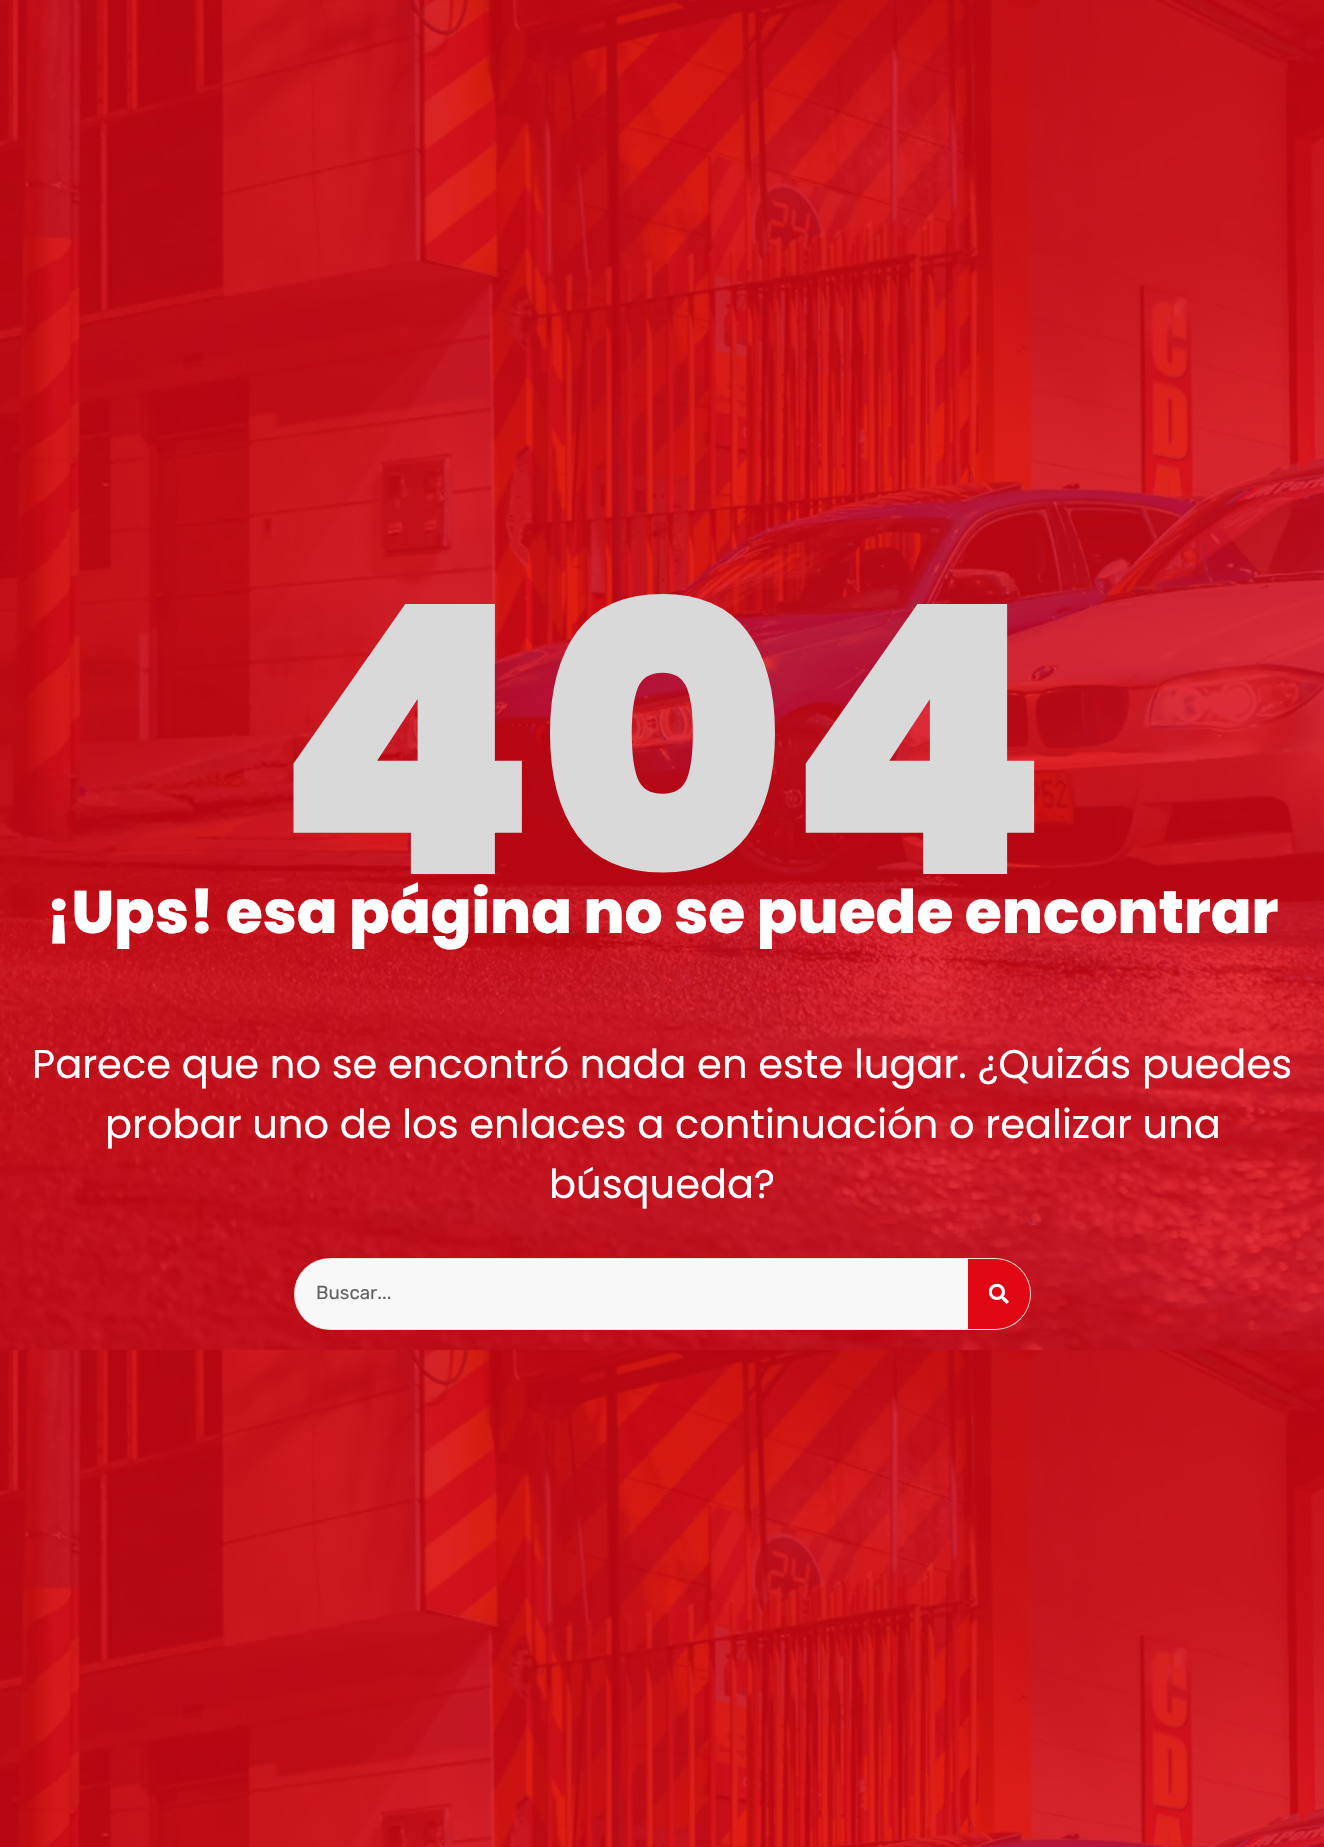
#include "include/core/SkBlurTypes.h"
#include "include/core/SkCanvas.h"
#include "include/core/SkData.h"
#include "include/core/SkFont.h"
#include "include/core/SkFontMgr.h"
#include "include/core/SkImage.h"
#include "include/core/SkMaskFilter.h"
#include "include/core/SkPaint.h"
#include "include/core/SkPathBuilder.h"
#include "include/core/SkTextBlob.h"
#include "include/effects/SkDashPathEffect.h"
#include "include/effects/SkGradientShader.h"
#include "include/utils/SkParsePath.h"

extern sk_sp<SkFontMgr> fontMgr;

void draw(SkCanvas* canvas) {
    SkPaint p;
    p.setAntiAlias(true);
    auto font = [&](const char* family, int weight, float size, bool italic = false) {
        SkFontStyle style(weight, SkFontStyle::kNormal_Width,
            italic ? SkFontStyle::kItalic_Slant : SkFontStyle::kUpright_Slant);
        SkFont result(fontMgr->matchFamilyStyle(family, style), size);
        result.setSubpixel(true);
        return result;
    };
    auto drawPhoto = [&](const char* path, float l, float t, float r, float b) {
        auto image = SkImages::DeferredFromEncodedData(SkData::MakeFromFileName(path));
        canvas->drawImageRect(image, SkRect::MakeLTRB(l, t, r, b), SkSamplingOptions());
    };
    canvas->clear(0xFFFFFFFF);
    drawPhoto("media/1.png", 0, 0, 1324, 1847);
    auto font1 = font("Poppins", 900, 375);
    p.setColor(0xFFD9D9D9);
    canvas->drawString("404", 274, 874, font1, p);
    auto font2 = font("Poppins", 800, 60);
    p.setColor(0xFFFFFFFF);
    canvas->drawString("¡Ups! esa página no se puede encontrar", 46, 933, font2, p);
    auto font3 = font("Poppins", 400, 40);
    {
        const struct { const char* s; float x, y; } items[] = {
            {"Parece que no se encontró nada en este lugar. ¿Quizás puedes", 32, 1078},
            {"probar uno de los enlaces a continuación o realizar una", 105, 1138},
            {"búsqueda?", 549, 1198},
        };
        for (auto [s, x, y] : items) {
            canvas->drawString(s, x, y, font3, p);
        }
    }
    p.setColor(0xFFF8F8F8);
    canvas->drawRoundRect(SkRect::MakeLTRB(294, 1258, 1031, 1330), 36, 36, p);
    p.setStyle(SkPaint::kStroke_Style);
    p.setStrokeWidth(1);
    p.setColor(0x24F94C30);
    canvas->drawRoundRect(SkRect::MakeLTRB(294.5f, 1258.5f, 1030.5f, 1329.5f), 35.5f, 35.5f, p);
    p.setStyle(SkPaint::kFill_Style);
    p.setColor(0xFFF8F8F8);
    canvas->drawRoundRect(SkRect::MakeLTRB(295, 1259, 968, 1329), 35, 35, p);
    auto font4 = font("Rubik", 400, 18.75f);
    p.setColor(0xFF636363);
    canvas->drawString("Buscar...", 316, 1299, font4, p);
    p.setColor(0xFFE20715);
    canvas->drawPath(SkPathBuilder().moveTo(968, 1259).lineTo(995, 1259).cubicTo(1014.5f, 1259, 1030, 1274.5f, 1030, 1294).cubicTo(1030, 1313.5f, 1014.5f, 1329, 995, 1329).lineTo(968, 1329).close().detach(), p);
    drawPhoto("media/2.png", 989, 1284, 1009, 1304);
}
